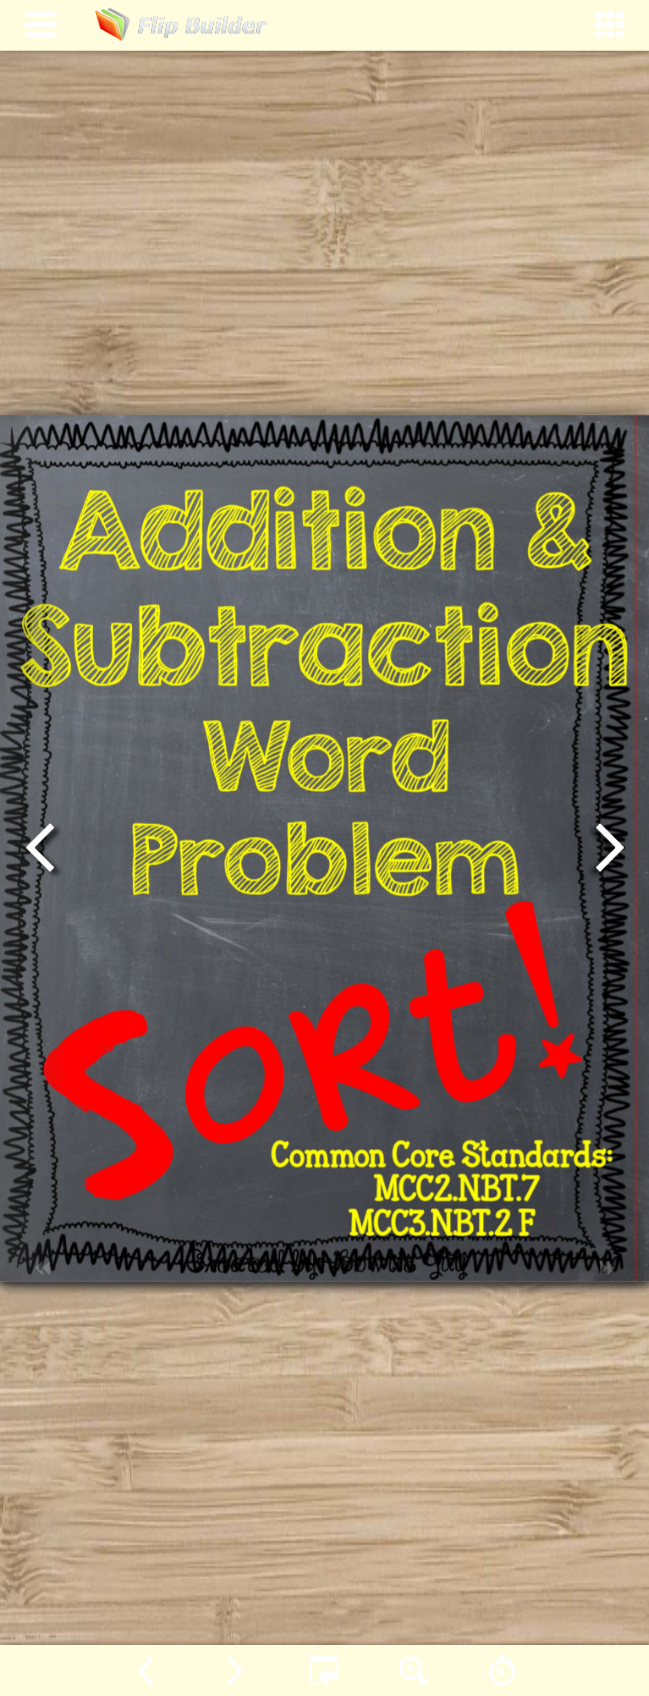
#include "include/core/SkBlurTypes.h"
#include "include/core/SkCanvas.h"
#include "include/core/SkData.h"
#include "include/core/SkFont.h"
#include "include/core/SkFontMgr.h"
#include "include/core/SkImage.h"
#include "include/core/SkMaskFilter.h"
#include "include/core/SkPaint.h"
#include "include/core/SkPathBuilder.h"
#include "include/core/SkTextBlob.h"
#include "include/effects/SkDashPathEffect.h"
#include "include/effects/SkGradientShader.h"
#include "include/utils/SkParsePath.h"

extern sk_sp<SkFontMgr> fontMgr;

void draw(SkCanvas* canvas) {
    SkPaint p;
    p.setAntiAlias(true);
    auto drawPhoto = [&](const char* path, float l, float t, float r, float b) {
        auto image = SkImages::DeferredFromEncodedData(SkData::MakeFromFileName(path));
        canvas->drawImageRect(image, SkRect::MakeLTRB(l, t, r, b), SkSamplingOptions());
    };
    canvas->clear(0xFFFFFFFF);
    drawPhoto("media/4.png", 0, 51, 649, 1645);
    p.setColor(0x80280000);
    p.setMaskFilter(SkMaskFilter::MakeBlur(kNormal_SkBlurStyle, 3));
    canvas->drawRect(SkRect::MakeLTRB(0, 0, 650, 51), p);
    p.setMaskFilter(nullptr);
    p.setColor(0xFFFFFDDD);
    canvas->drawRect(SkRect::MakeLTRB(0, 0, 649, 50), p);
    p.setColor(0xFFE1DFBF);
    canvas->drawRect(SkRect::MakeLTRB(0, 50, 649, 51), p);
    drawPhoto("media/1.png", 25, 11, 57, 38);
    drawPhoto("media/2.png", 95, 7, 267, 41);
    drawPhoto("media/3.png", 595, 11, 625, 38);
    p.setColor(0xB3282828);
    p.setMaskFilter(SkMaskFilter::MakeBlur(kNormal_SkBlurStyle, 9.5f));
    canvas->drawRect(SkRect::MakeLTRB(0, 415, 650, 1281), p);
    p.setMaskFilter(nullptr);
    canvas->save();
    canvas->clipRect(SkRect::MakeLTRB(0, 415, 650, 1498));
    p.setColor(0x80282828);
    p.setMaskFilter(SkMaskFilter::MakeBlur(kNormal_SkBlurStyle, 6));
    canvas->drawRect(SkRect::MakeLTRB(0, 415, 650, 1281), p);
    p.setMaskFilter(nullptr);
    p.setMaskFilter(SkMaskFilter::MakeBlur(kNormal_SkBlurStyle, 6));
    canvas->drawRect(SkRect::MakeLTRB(0, 415, 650, 1281), p);
    p.setMaskFilter(nullptr);
    p.setMaskFilter(SkMaskFilter::MakeBlur(kNormal_SkBlurStyle, 6));
    canvas->drawRect(SkRect::MakeLTRB(0, 415, 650, 1281), p);
    p.setMaskFilter(nullptr);
    canvas->restore();
    drawPhoto("media/5.png", 0, 1280, 649, 1282);
    canvas->save();
    canvas->clipRect(SkRect::MakeLTRB(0, 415, 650, 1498));
    p.setMaskFilter(SkMaskFilter::MakeBlur(kNormal_SkBlurStyle, 6));
    canvas->drawRect(SkRect::MakeLTRB(0, 415, 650, 1281), p);
    p.setMaskFilter(nullptr);
    canvas->restore();
    drawPhoto("media/6.png", 0, 415, 649, 1282);
    canvas->save();
    canvas->clipRect(SkRect::MakeLTRB(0, 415, 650, 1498));
    p.setMaskFilter(SkMaskFilter::MakeBlur(kNormal_SkBlurStyle, 6));
    canvas->drawRect(SkRect::MakeLTRB(0, 415, 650, 1281), p);
    p.setMaskFilter(nullptr);
    canvas->restore();
    drawPhoto("media/7.png", 0, 415, 649, 1282);
    canvas->save();
    canvas->clipRect(SkRect::MakeLTRB(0, 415, 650, 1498));
    p.setMaskFilter(SkMaskFilter::MakeBlur(kNormal_SkBlurStyle, 6));
    canvas->drawRect(SkRect::MakeLTRB(0, 415, 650, 1281), p);
    p.setMaskFilter(nullptr);
    canvas->restore();
    drawPhoto("media/8.png", 0, 415, 649, 1282);
    {
        const SkColor colors[] = {0x5C5D5D5D, 0x005D5D5D};
        const float stops[] = {0, 1};
        const SkPoint ends[] = {{0, 415}, {69, 415}};
        p.setShader(SkGradientShader::MakeLinear(ends, colors, stops, 2, SkTileMode::kClamp));
        p.setAlpha(255);
    }
    canvas->drawRect(SkRect::MakeLTRB(0, 415, 65, 1281), p);
    drawPhoto("media/9.png", 26, 823, 62, 878);
    drawPhoto("media/10.png", 588, 823, 624, 878);
    drawPhoto("media/11.png", 35, 1261, 51, 1276);
    drawPhoto("media/12.png", 600, 1261, 615, 1276);
    p.setShader(nullptr);
    p.setColor(0x80280000);
    p.setMaskFilter(SkMaskFilter::MakeBlur(kNormal_SkBlurStyle, 3));
    canvas->drawRect(SkRect::MakeLTRB(0, 1645, 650, 1696), p);
    p.setMaskFilter(nullptr);
    p.setColor(0xFFFFFDDD);
    canvas->drawRect(SkRect::MakeLTRB(0, 1646, 649, 1696), p);
    p.setColor(0xFFFFFFFB);
    canvas->drawRect(SkRect::MakeLTRB(0, 1645, 649, 1646), p);
    drawPhoto("media/13.png", 138, 1655, 154, 1686);
    drawPhoto("media/14.png", 227, 1656, 243, 1686);
    drawPhoto("media/15.png", 310, 1655, 340, 1686);
    drawPhoto("media/16.png", 399, 1656, 428, 1687);
    drawPhoto("media/17.png", 488, 1655, 516, 1686);
}
